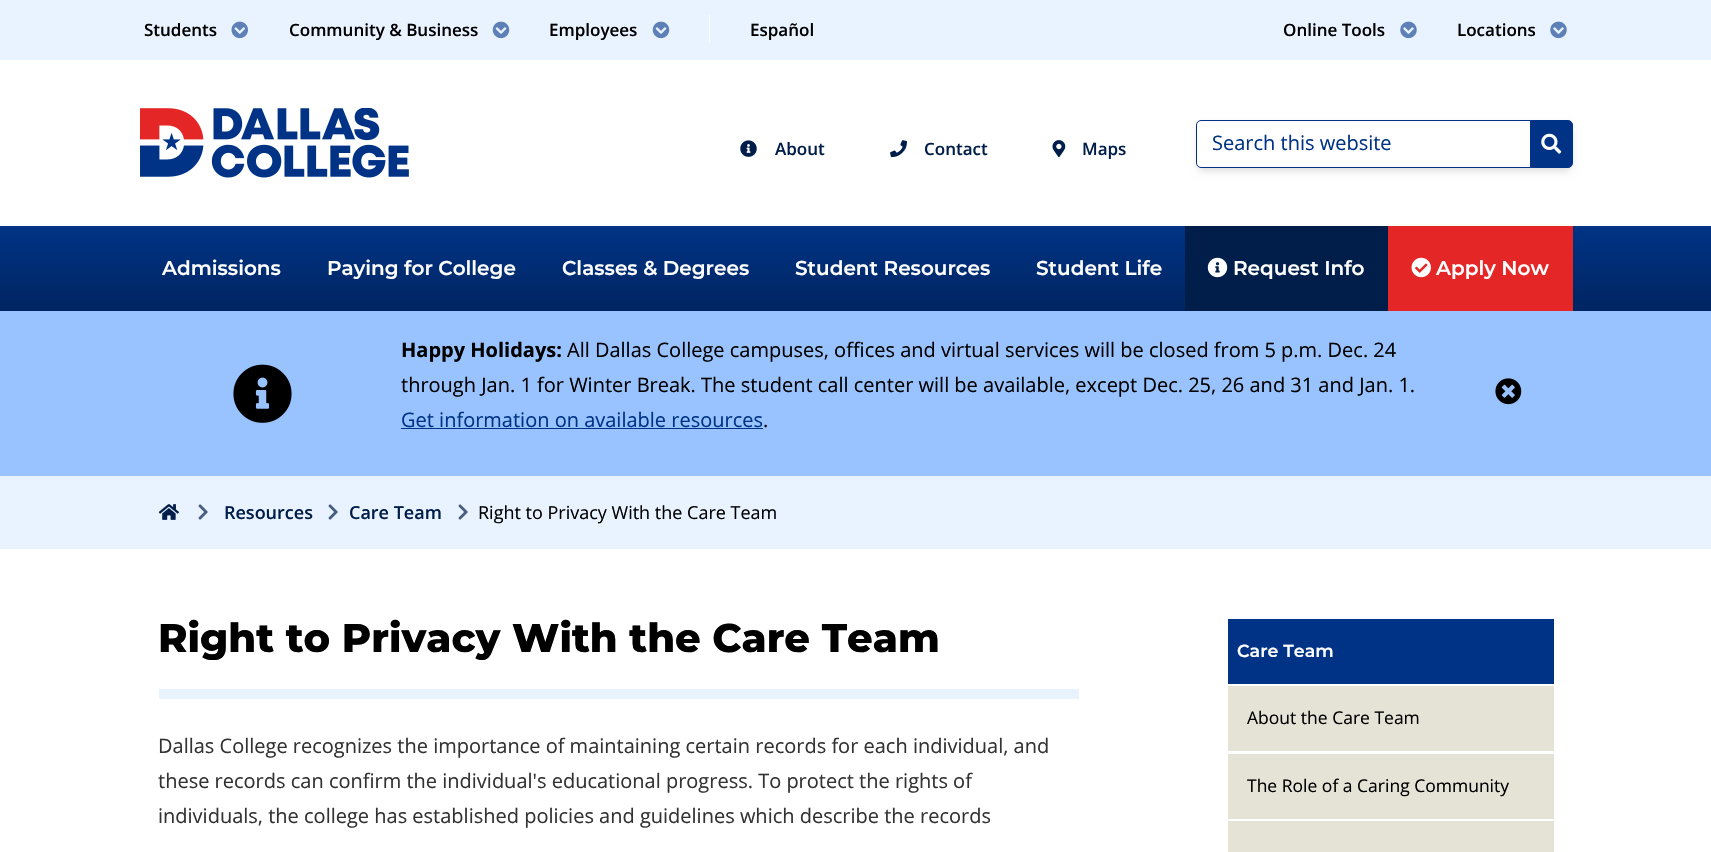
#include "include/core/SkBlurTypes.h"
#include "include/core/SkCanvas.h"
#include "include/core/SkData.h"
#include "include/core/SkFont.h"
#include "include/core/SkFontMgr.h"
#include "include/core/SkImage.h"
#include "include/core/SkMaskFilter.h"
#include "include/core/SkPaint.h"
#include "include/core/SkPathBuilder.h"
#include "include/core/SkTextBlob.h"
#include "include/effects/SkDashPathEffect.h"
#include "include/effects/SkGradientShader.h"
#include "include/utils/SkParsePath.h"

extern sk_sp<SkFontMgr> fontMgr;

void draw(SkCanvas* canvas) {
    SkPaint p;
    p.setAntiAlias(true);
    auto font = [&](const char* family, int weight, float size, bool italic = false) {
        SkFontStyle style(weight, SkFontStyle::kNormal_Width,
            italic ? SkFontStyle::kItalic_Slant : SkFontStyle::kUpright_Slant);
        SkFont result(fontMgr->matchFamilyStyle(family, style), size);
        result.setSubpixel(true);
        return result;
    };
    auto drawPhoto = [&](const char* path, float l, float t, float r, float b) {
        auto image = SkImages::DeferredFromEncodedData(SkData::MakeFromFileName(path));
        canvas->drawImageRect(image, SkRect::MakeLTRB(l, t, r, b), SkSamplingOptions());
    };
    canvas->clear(0xFFFFFFFF);
    p.setColor(0xFFE9F2FF);
    canvas->drawRect(SkRect::MakeLTRB(0, 0, 1711, 60), p);
    auto font1 = font("Open Sans", 600, 17);
    p.setColor(0xFF000000);
    canvas->drawString("Students", 144, 36, font1, p);
    drawPhoto("media/1.png", 231, 21, 248, 39);
    canvas->drawString("Community & Business", 289, 36, font1, p);
    drawPhoto("media/2.png", 492, 21, 510, 39);
    canvas->drawString("Employees", 549, 36, font1, p);
    drawPhoto("media/2.png", 652, 21, 670, 39);
    p.setColor(0xFFFFFFFF);
    canvas->drawRect(SkRect::MakeLTRB(709, 15, 710, 43), p);
    p.setColor(0xFF000000);
    canvas->drawString("Español", 750, 36, font1, p);
    canvas->drawString("Online Tools", 1283, 36, font1, p);
    drawPhoto("media/3.png", 1400, 21, 1417, 39);
    canvas->drawString("Locations", 1457, 36, font1, p);
    drawPhoto("media/3.png", 1550, 21, 1567, 39);
    drawPhoto("media/4.png", 140, 108, 409, 178);
    drawPhoto("media/5.png", 740, 140, 757, 157);
    p.setColor(0xFF001E49);
    canvas->drawString("About", 775, 155, font1, p);
    drawPhoto("media/6.png", 890, 140, 907, 158);
    canvas->drawString("Contact", 924, 155, font1, p);
    drawPhoto("media/7.png", 1052, 140, 1066, 158);
    canvas->drawString("Maps", 1082, 155, font1, p);
    p.setColor(0x0F000000);
    p.setMaskFilter(SkMaskFilter::MakeBlur(kNormal_SkBlurStyle, 2.5f));
    canvas->drawRoundRect(SkRect::MakeLTRB(1199, 124, 1571, 169), 4, 4, p);
    p.setMaskFilter(nullptr);
    p.setColor(0x1A000000);
    p.setMaskFilter(SkMaskFilter::MakeBlur(kNormal_SkBlurStyle, 4));
    canvas->drawRoundRect(SkRect::MakeLTRB(1199, 126, 1571, 171), 4, 4, p);
    p.setMaskFilter(nullptr);
    p.setColor(0xFFFFFFFF);
    canvas->drawPath(SkPathBuilder().moveTo(1201, 120.5f).lineTo(1530.5f, 120.5f).lineTo(1530.5f, 167.5f).lineTo(1201, 167.5f).cubicTo(1198.5f, 167.5f, 1196.5f, 165.5f, 1196.5f, 163).lineTo(1196.5f, 125).cubicTo(1196.5f, 122.5f, 1198.5f, 120.5f, 1201, 120.5f).close().detach(), p);
    p.setStyle(SkPaint::kStroke_Style);
    p.setStrokeWidth(1);
    p.setColor(0xFF003385);
    canvas->drawPath(SkPathBuilder().moveTo(1201, 120.5f).lineTo(1530.5f, 120.5f).lineTo(1530.5f, 167.5f).lineTo(1201, 167.5f).cubicTo(1198.5f, 167.5f, 1196.5f, 165.5f, 1196.5f, 163).lineTo(1196.5f, 125).cubicTo(1196.5f, 122.5f, 1198.5f, 120.5f, 1201, 120.5f).close().detach(), p);
    auto font2 = font("Open Sans", 400, 20);
    p.setStyle(SkPaint::kFill_Style);
    canvas->drawString("Search this website", 1212, 150, font2, p);
    canvas->drawPath(SkPathBuilder().moveTo(1530.5f, 120.5f).lineTo(1568, 120.5f).cubicTo(1570.5f, 120.5f, 1572.5f, 122.5f, 1572.5f, 125).lineTo(1572.5f, 163).cubicTo(1572.5f, 165.5f, 1570.5f, 167.5f, 1568, 167.5f).lineTo(1530.5f, 167.5f).close().detach(), p);
    p.setStyle(SkPaint::kStroke_Style);
    canvas->drawPath(SkPathBuilder().moveTo(1530.5f, 120.5f).lineTo(1568, 120.5f).cubicTo(1570.5f, 120.5f, 1572.5f, 122.5f, 1572.5f, 125).lineTo(1572.5f, 163).cubicTo(1572.5f, 165.5f, 1570.5f, 167.5f, 1568, 167.5f).lineTo(1530.5f, 167.5f).close().detach(), p);
    drawPhoto("media/8.png", 1541, 133, 1562, 154);
    p.setStyle(SkPaint::kFill_Style);
    {
        const SkColor colors[] = {0xFF003385, 0xFF002561};
        const float stops[] = {0, 1};
        const SkPoint ends[] = {{856, 226}, {856, 311}};
        p.setShader(SkGradientShader::MakeLinear(ends, colors, stops, 2, SkTileMode::kClamp));
        p.setAlpha(255);
    }
    canvas->drawRect(SkRect::MakeLTRB(0, 226, 1711, 311), p);
    auto font3 = font("Montserrat", 600, 20);
    p.setShader(nullptr);
    p.setColor(0xFFFFFFFF);
    {
        const struct { const char* s; float x, y; } items[] = {
            {"Admissions", 162, 275},
            {"Paying for College", 327, 275},
            {"Classes & Degrees", 562, 275},
            {"Student Resources", 795, 275},
            {"Student Life", 1036, 275},
        };
        for (auto [s, x, y] : items) {
            canvas->drawString(s, x, y, font3, p);
        }
    }
    p.setColor(0xFF001E49);
    canvas->drawRect(SkRect::MakeLTRB(1185, 226, 1388, 311), p);
    drawPhoto("media/9.png", 1207, 257, 1228, 278);
    p.setColor(0xFFFFFFFF);
    canvas->drawString("Request Info", 1233, 275, font3, p);
    p.setColor(0xFFE52626);
    canvas->drawRect(SkRect::MakeLTRB(1388, 226, 1573, 311), p);
    drawPhoto("media/10.png", 1411, 257, 1431, 278);
    p.setColor(0xFFFFFFFF);
    canvas->drawString("Apply Now", 1436, 275, font3, p);
    p.setColor(0xFF99C3FF);
    canvas->drawRect(SkRect::MakeLTRB(0, 311, 1711, 476), p);
    drawPhoto("media/11.png", 233, 364, 292, 423);
    auto font4 = font("Open Sans", 700, 20);
    p.setColor(0xFF000000);
    canvas->drawString("Happy Holidays:", 401, 357, font4, p);
    canvas->drawString("All Dallas College campuses, offices and virtual services will be closed from 5 p.m. Dec. 24", 567, 357, font2, p);
    canvas->drawString("through Jan. 1 for Winter Break. The student call center will be available, except Dec. 25, 26 and 31 and Jan. 1.", 401, 392, font2, p);
    p.setColor(0xFF003385);
    canvas->drawString("Get information on available resources", 401, 427, font2, p);
    canvas->drawRect(SkRect::MakeLTRB(401, 428, 763, 429), p);
    p.setColor(0xFF000000);
    canvas->drawString(".", 763, 427, font2, p);
    drawPhoto("media/12.png", 1495, 378, 1522, 405);
    p.setColor(0xFFE9F2FF);
    canvas->drawRect(SkRect::MakeLTRB(0, 476, 1711, 549), p);
    drawPhoto("media/13.png", 158, 504, 179, 520);
    drawPhoto("media/14.png", 198, 504, 208, 520);
    auto font5 = font("Open Sans", 600, 18);
    p.setColor(0xFF001E49);
    canvas->drawString("Resources", 224, 519, font5, p);
    drawPhoto("media/14.png", 328, 504, 338, 520);
    canvas->drawString("Care Team", 349, 519, font5, p);
    drawPhoto("media/14.png", 458, 504, 468, 520);
    auto font6 = font("Open Sans", 400, 18);
    p.setColor(0xFF000000);
    canvas->drawString("Right to Privacy With the Care Team", 478, 519, font6, p);
    p.setColor(0xFFE9F2FF);
    canvas->drawRect(SkRect::MakeLTRB(159, 689, 1079, 699), p);
    auto font7 = font("Montserrat", 800, 40);
    p.setColor(0xFF000000);
    canvas->drawString("Right to Privacy With the Care Team", 158, 652, font7, p);
    p.setColor(0xFF333333);
    {
        const struct { const char* s; float x, y; } items[] = {
            {"Dallas College recognizes the importance of maintaining certain records for each individual, and", 158, 753},
            {"these records can confirm the individual's educational progress. To protect the rights of", 158, 788},
            {"individuals, the college has established policies and guidelines which describe the records", 158, 823},
        };
        for (auto [s, x, y] : items) {
            canvas->drawString(s, x, y, font2, p);
        }
    }
    p.setColor(0xFF003385);
    canvas->drawRect(SkRect::MakeLTRB(1228, 619, 1554, 684), p);
    auto font8 = font("Montserrat", 600, 17.5f);
    p.setColor(0xFFFFFFFF);
    canvas->drawString("Care Team", 1237, 657, font8, p);
    p.setColor(0xFFE5E2D6);
    canvas->drawRect(SkRect::MakeLTRB(1228, 686, 1554, 751), p);
    auto font9 = font("Open Sans", 400, 17.5f);
    p.setColor(0xFF000000);
    canvas->drawString("About the Care Team", 1247, 724, font9, p);
    p.setColor(0xFFE5E2D6);
    canvas->drawRect(SkRect::MakeLTRB(1228, 754, 1554, 819), p);
    p.setColor(0xFF000000);
    canvas->drawString("The Role of a Caring Community", 1247, 792, font9, p);
    p.setColor(0xFFE5E2D6);
    canvas->drawRect(SkRect::MakeLTRB(1228, 821, 1554, 852), p);
}
